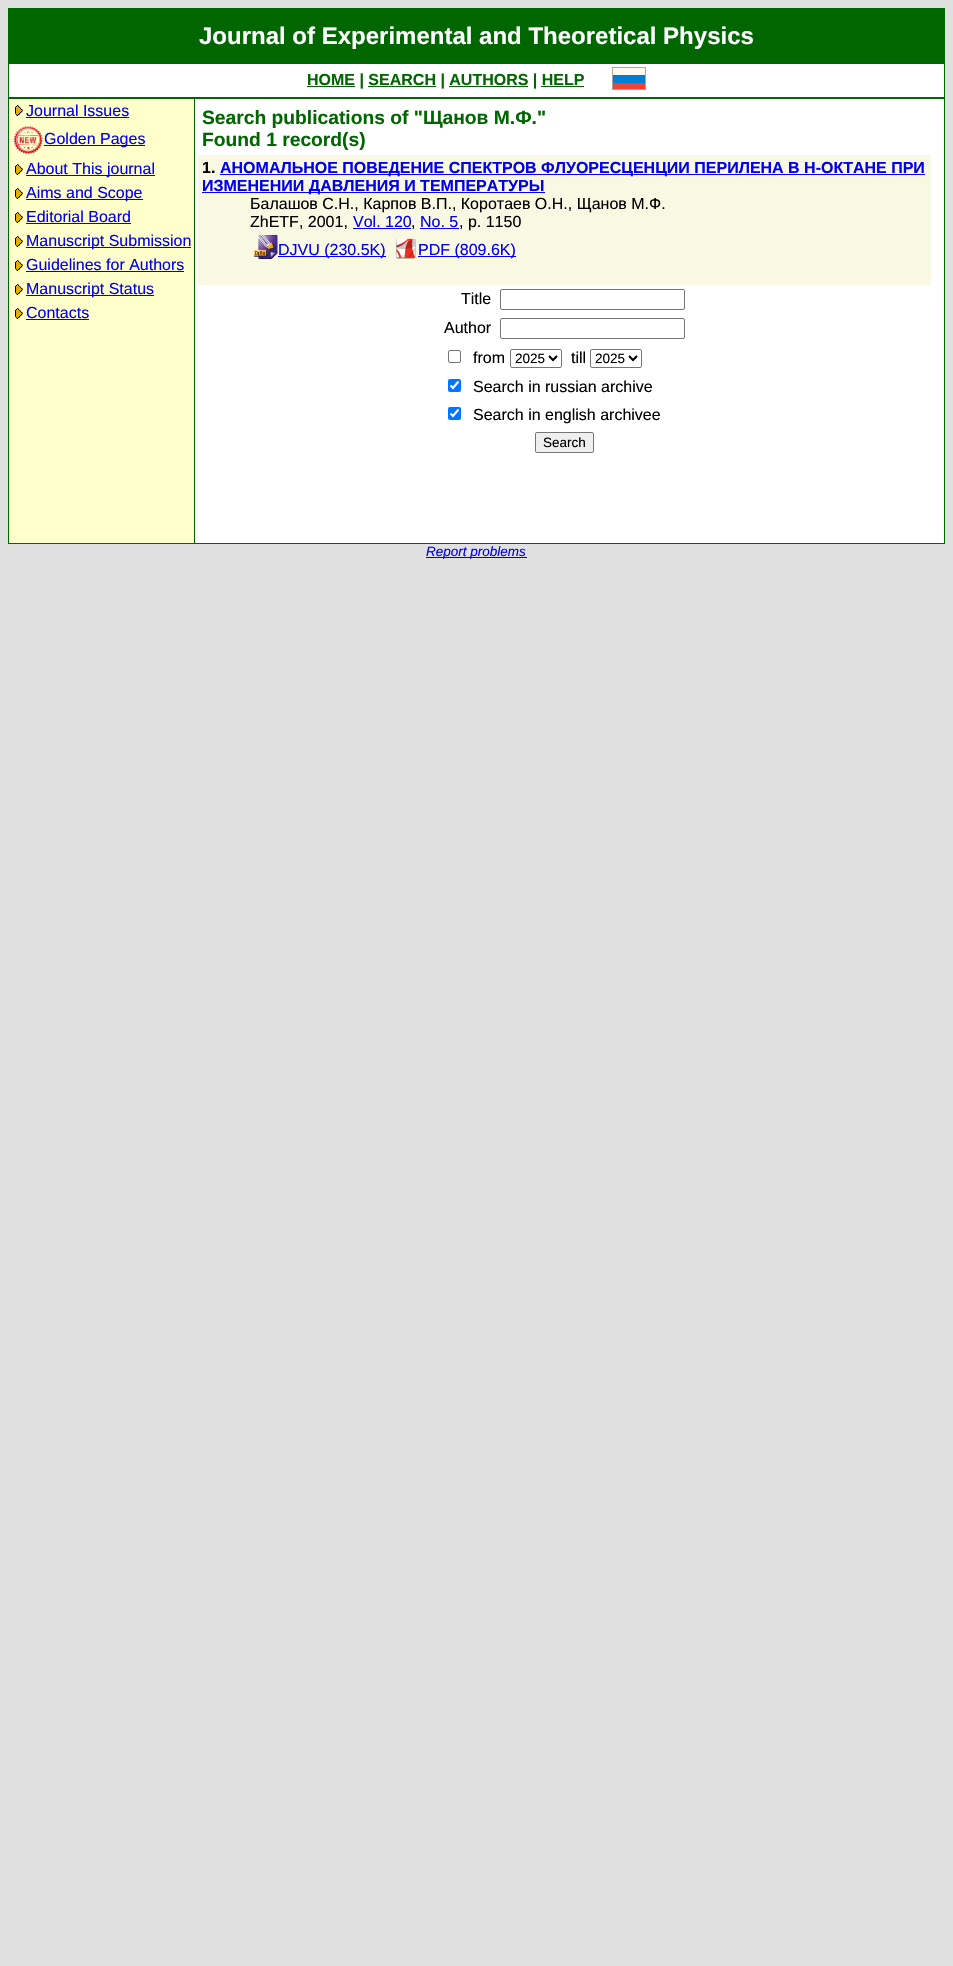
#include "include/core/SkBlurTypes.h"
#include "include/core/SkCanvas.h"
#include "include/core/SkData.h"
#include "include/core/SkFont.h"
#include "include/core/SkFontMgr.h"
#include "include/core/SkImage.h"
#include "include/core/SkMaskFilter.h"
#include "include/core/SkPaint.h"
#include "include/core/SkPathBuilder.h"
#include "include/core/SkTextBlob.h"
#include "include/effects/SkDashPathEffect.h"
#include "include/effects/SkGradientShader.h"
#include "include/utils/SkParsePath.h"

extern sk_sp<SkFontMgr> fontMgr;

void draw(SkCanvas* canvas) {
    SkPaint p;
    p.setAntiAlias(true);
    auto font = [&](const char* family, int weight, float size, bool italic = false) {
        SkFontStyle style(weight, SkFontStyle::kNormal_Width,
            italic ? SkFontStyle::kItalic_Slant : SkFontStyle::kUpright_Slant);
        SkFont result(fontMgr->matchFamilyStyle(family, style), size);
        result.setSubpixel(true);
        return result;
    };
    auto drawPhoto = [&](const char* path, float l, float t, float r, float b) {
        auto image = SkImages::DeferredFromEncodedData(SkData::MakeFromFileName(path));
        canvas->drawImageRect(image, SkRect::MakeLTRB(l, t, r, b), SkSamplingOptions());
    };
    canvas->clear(0xFFE0E0E0);
    p.setColor(0xFF006600);
    canvas->drawRect(SkRect::MakeLTRB(8, 8, 945, 544), p);
    p.setColor(0xFFFFFFFF);
    canvas->drawRect(SkRect::MakeLTRB(9, 64, 944, 543), p);
    auto font1 = font("Liberation Sans", 700, 24);
    canvas->drawString("Journal of Experimental and Theoretical Physics", 199, 44, font1, p);
    p.setColor(0xFF006600);
    canvas->drawRect(SkRect::MakeLTRB(307, 86, 355, 87), p);
    auto font2 = font("Liberation Sans", 700, 16);
    canvas->drawString("HOME | SEARCH | AUTHORS | HELP", 307, 85, font2, p);
    {
        const struct { float l, t, r, b; SkColor color; } items[] = {
            {368, 86, 436, 87, 0xFF006600},
            {449, 86, 528, 87, 0xFF006600},
            {541, 86, 584, 87, 0xFF006600},
        };
        for (auto [l, t, r, b, color] : items) {
            p.setColor(color);
            canvas->drawRect(SkRect::MakeLTRB(l, t, r, b), p);
        }
    }
    drawPhoto("media/1.png", 612, 67, 646, 90);
    canvas->drawRect(SkRect::MakeLTRB(9, 97, 944, 99), p);
    p.setColor(0xFFFFFFCC);
    canvas->drawRect(SkRect::MakeLTRB(9, 99, 194, 543), p);
    drawPhoto("media/2.png", 14, 105, 23, 116);
    auto font3 = font("Liberation Sans", 400, 16);
    p.setColor(0xFF0000EE);
    canvas->drawString("Journal Issues", 26, 116, font3, p);
    canvas->drawRect(SkRect::MakeLTRB(26, 117, 129, 118), p);
    drawPhoto("media/3.png", 12, 126, 43, 154);
    canvas->drawRect(SkRect::MakeLTRB(44, 145, 145, 146), p);
    canvas->drawString("Golden Pages", 44, 144, font3, p);
    drawPhoto("media/2.png", 14, 164, 23, 175);
    canvas->drawRect(SkRect::MakeLTRB(26, 175, 155, 176), p);
    canvas->drawString("About This journal", 26, 174, font3, p);
    drawPhoto("media/2.png", 14, 188, 23, 199);
    canvas->drawRect(SkRect::MakeLTRB(26, 199, 143, 200), p);
    canvas->drawString("Aims and Scope", 26, 198, font3, p);
    drawPhoto("media/2.png", 14, 212, 23, 223);
    canvas->drawString("Editorial Board", 26, 222, font3, p);
    canvas->drawRect(SkRect::MakeLTRB(26, 223, 131, 224), p);
    drawPhoto("media/2.png", 14, 236, 23, 247);
    canvas->drawRect(SkRect::MakeLTRB(26, 247, 191, 248), p);
    canvas->drawString("Manuscript Submission", 26, 246, font3, p);
    drawPhoto("media/2.png", 14, 260, 23, 271);
    canvas->drawString("Guidelines for Authors", 26, 270, font3, p);
    canvas->drawRect(SkRect::MakeLTRB(26, 271, 184, 272), p);
    drawPhoto("media/2.png", 14, 284, 23, 295);
    canvas->drawRect(SkRect::MakeLTRB(26, 295, 154, 296), p);
    canvas->drawString("Manuscript Status", 26, 294, font3, p);
    drawPhoto("media/2.png", 14, 308, 23, 319);
    canvas->drawString("Contacts", 26, 318, font3, p);
    canvas->drawRect(SkRect::MakeLTRB(26, 319, 89, 320), p);
    p.setColor(0xFF006600);
    canvas->drawRect(SkRect::MakeLTRB(194, 99, 195, 543), p);
    auto font4 = font("Liberation Sans", 700, 19.25f);
    canvas->drawString("Search publications of \"Щанов М.Ф.\"", 202, 124, font4, p);
    canvas->drawString("Found 1 record(s)", 202, 146, font4, p);
    p.setColor(0xFFF8F8E3);
    canvas->drawRect(SkRect::MakeLTRB(198, 155, 931, 285), p);
    p.setColor(0xFF000000);
    canvas->drawString("1.", 202, 173, font2, p);
    p.setColor(0xFF0000EE);
    canvas->drawRect(SkRect::MakeLTRB(220, 174, 925, 175), p);
    canvas->drawString("АНОМАЛЬНОЕ ПОВЕДЕНИЕ СПЕКТРОВ ФЛУОРЕСЦЕНЦИИ ПЕРИЛЕНА В Н-ОКТАНЕ ПРИ", 220, 173, font2, p);
    canvas->drawRect(SkRect::MakeLTRB(202, 192, 545, 193), p);
    canvas->drawString("ИЗМЕНЕНИИ ДАВЛЕНИЯ И ТЕМПЕРАТУРЫ", 202, 191, font2, p);
    p.setColor(0xFF000000);
    canvas->drawString("Балашов С.Н., Карпов В.П., Коротаев О.Н., Щанов М.Ф.", 250, 209, font3, p);
    canvas->drawString("ZhETF, 2001,", 250, 227, font3, p);
    p.setColor(0xFF0000EE);
    canvas->drawString("Vol. 120", 353, 227, font3, p);
    canvas->drawRect(SkRect::MakeLTRB(353, 228, 411, 229), p);
    p.setColor(0xFF000000);
    canvas->drawString(",", 411, 227, font3, p);
    p.setColor(0xFF0000EE);
    canvas->drawString("No. 5", 420, 227, font3, p);
    canvas->drawRect(SkRect::MakeLTRB(420, 228, 459, 229), p);
    p.setColor(0xFF000000);
    canvas->drawString(", p. 1150", 459, 227, font3, p);
    drawPhoto("media/4.png", 254, 235, 278, 259);
    p.setColor(0xFF0000EE);
    canvas->drawRect(SkRect::MakeLTRB(278, 256, 386, 257), p);
    canvas->drawString("DJVU (230.5K)", 278, 255, font3, p);
    drawPhoto("media/5.png", 396, 238, 416, 259);
    canvas->drawRect(SkRect::MakeLTRB(418, 256, 516, 257), p);
    canvas->drawString("PDF (809.6K)", 418, 255, font3, p);
    p.setColor(0xFF000000);
    canvas->drawString("Title", 461, 304, font3, p);
    p.setStyle(SkPaint::kStroke_Style);
    p.setStrokeWidth(1);
    p.setColor(0xFF767676);
    canvas->drawRoundRect(SkRect::MakeLTRB(500.5f, 289.5f, 684.5f, 309.5f), 1.5f, 1.5f, p);
    p.setStyle(SkPaint::kFill_Style);
    p.setColor(0xFF000000);
    canvas->drawString("Author", 444, 333, font3, p);
    p.setStyle(SkPaint::kStroke_Style);
    p.setColor(0xFF767676);
    canvas->drawRoundRect(SkRect::MakeLTRB(500.5f, 318.5f, 684.5f, 338.5f), 1.5f, 1.5f, p);
    canvas->drawRoundRect(SkRect::MakeLTRB(448.5f, 350.5f, 460.5f, 362.5f), 1.5f, 1.5f, p);
    p.setStyle(SkPaint::kFill_Style);
    p.setColor(0xFF000000);
    canvas->drawString("from", 473, 363, font3, p);
    p.setStyle(SkPaint::kStroke_Style);
    p.setColor(0xFF767676);
    canvas->drawRoundRect(SkRect::MakeLTRB(510.5f, 349.5f, 561.5f, 367.5f), 1.5f, 1.5f, p);
    p.setStrokeWidth(2);
    p.setColor(0xFF000000);
    canvas->drawPath(SkPathBuilder().moveTo(549, 356).lineTo(553, 360).lineTo(557, 356).detach(), p);
    auto font5 = font("Liberation Sans", 400, 13.5f);
    p.setStyle(SkPaint::kFill_Style);
    canvas->drawString("2025", 515, 363, font5, p);
    canvas->drawString("till", 571, 363, font3, p);
    p.setStyle(SkPaint::kStroke_Style);
    p.setStrokeWidth(1);
    p.setColor(0xFF767676);
    canvas->drawRoundRect(SkRect::MakeLTRB(590.5f, 349.5f, 641.5f, 367.5f), 1.5f, 1.5f, p);
    p.setStrokeWidth(2);
    p.setColor(0xFF000000);
    canvas->drawPath(SkPathBuilder().moveTo(629, 356).lineTo(633, 360).lineTo(637, 356).detach(), p);
    p.setStyle(SkPaint::kFill_Style);
    canvas->drawString("2025", 595, 363, font5, p);
    p.setColor(0xFF0075FF);
    canvas->drawRoundRect(SkRect::MakeLTRB(448, 379, 461, 392), 2, 2, p);
    p.setStyle(SkPaint::kStroke_Style);
    p.setStrokeWidth(2.1f);
    p.setColor(0xFFFFFFFF);
    canvas->drawPath(SkPathBuilder().moveTo(450.5f, 385.5f).lineTo(453, 388).lineTo(458.5f, 381.5f).detach(), p);
    p.setStyle(SkPaint::kFill_Style);
    p.setColor(0xFF000000);
    canvas->drawString("Search in russian archive", 473, 392, font3, p);
    p.setColor(0xFF0075FF);
    canvas->drawRoundRect(SkRect::MakeLTRB(448, 407, 461, 420), 2, 2, p);
    p.setStyle(SkPaint::kStroke_Style);
    p.setColor(0xFFFFFFFF);
    canvas->drawPath(SkPathBuilder().moveTo(450.5f, 413.5f).lineTo(453, 416).lineTo(458.5f, 409.5f).detach(), p);
    p.setStyle(SkPaint::kFill_Style);
    p.setColor(0xFF000000);
    canvas->drawString("Search in english archiveе", 473, 420, font3, p);
    p.setColor(0xFFEFEFEF);
    canvas->drawRoundRect(SkRect::MakeLTRB(535.5f, 432.5f, 593.5f, 452.5f), 1.5f, 1.5f, p);
    p.setStyle(SkPaint::kStroke_Style);
    p.setStrokeWidth(1);
    p.setColor(0xFF767676);
    canvas->drawRoundRect(SkRect::MakeLTRB(535.5f, 432.5f, 593.5f, 452.5f), 1.5f, 1.5f, p);
    p.setStyle(SkPaint::kFill_Style);
    p.setColor(0xFF000000);
    canvas->drawString("Search", 543, 447, font5, p);
    p.setColor(0xFF0000EE);
    canvas->drawRect(SkRect::MakeLTRB(426, 557, 527, 558), p);
    auto font6 = font("Liberation Sans", 400, 13.5f, true);
    canvas->drawString("Report problems", 426, 556, font6, p);
}
